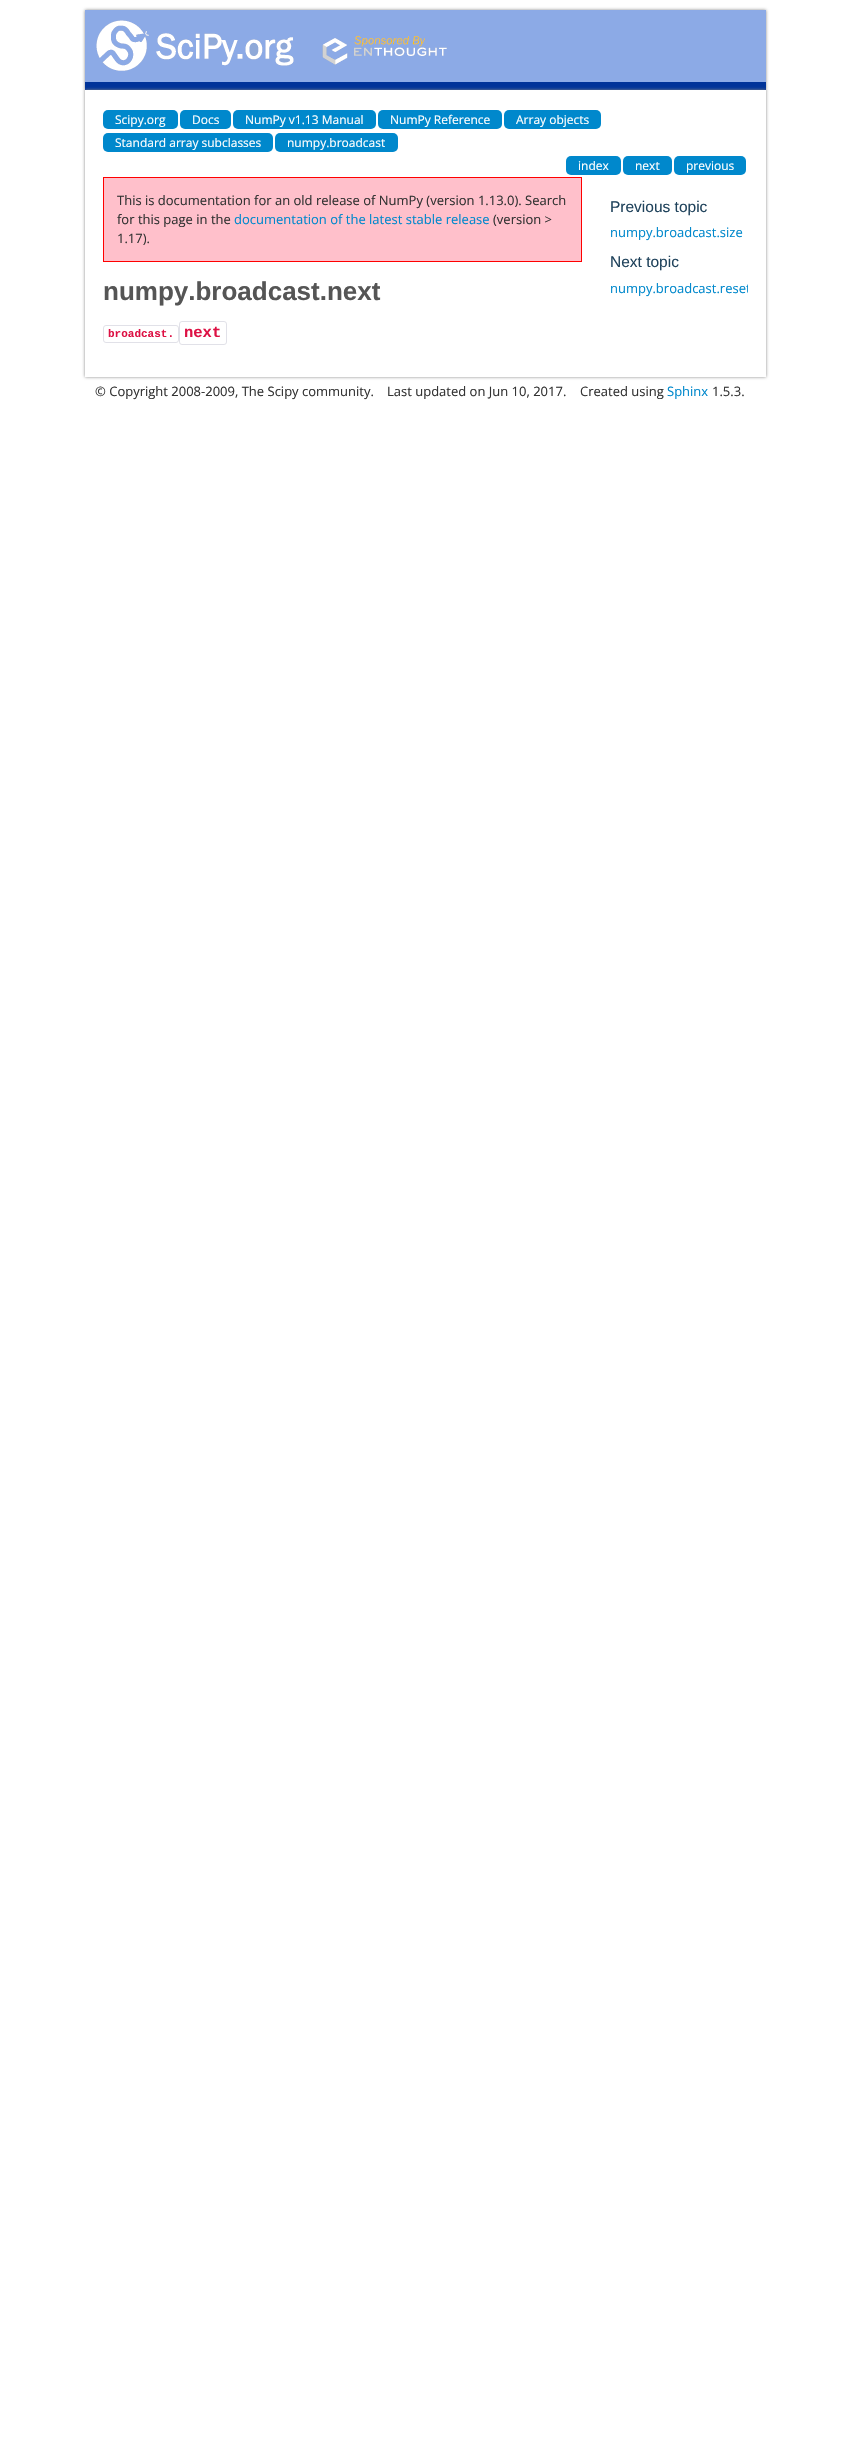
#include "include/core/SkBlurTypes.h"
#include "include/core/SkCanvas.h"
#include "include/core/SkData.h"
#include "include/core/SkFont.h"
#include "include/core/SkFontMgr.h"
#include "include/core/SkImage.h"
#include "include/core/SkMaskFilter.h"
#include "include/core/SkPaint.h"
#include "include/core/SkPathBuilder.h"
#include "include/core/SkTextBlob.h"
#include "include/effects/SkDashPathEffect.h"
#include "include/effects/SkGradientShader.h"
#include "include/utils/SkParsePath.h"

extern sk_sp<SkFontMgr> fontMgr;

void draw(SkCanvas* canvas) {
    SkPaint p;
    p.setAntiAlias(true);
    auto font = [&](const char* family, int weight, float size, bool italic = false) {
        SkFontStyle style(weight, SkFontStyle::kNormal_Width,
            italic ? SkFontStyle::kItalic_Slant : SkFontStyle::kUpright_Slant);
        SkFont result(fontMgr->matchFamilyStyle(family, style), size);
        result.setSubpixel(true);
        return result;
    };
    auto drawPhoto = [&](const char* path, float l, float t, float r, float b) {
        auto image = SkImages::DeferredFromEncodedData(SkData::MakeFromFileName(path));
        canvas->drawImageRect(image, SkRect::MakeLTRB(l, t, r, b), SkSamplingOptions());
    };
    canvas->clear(0xFFFFFFFF);
    p.setColor(0xFF888888);
    p.setMaskFilter(SkMaskFilter::MakeBlur(kNormal_SkBlurStyle, 1.5f));
    canvas->drawRect(SkRect::MakeLTRB(85, 10, 766, 90), p);
    p.setMaskFilter(nullptr);
    p.setColor(0xFF8CAAE6);
    canvas->drawRect(SkRect::MakeLTRB(85, 10, 766, 82), p);
    p.setColor(0xFF003399);
    canvas->drawRect(SkRect::MakeLTRB(85, 82, 766, 90), p);
    drawPhoto("media/1.png", 96, 20, 447, 71);
    p.setColor(0xFF888888);
    p.setMaskFilter(SkMaskFilter::MakeBlur(kNormal_SkBlurStyle, 1.5f));
    canvas->drawRect(SkRect::MakeLTRB(85, 90, 766, 377), p);
    p.setMaskFilter(nullptr);
    p.setColor(0xFFFFFFFF);
    canvas->drawRect(SkRect::MakeLTRB(85, 90, 766, 377), p);
    p.setColor(0xFF0088CC);
    canvas->drawRoundRect(SkRect::MakeLTRB(103, 110, 178, 129), 5, 5, p);
    auto font1 = font("Open Sans", 400, 12);
    p.setColor(0xFFFFFFFF);
    canvas->drawString("Scipy.org", 115, 124, font1, p);
    p.setColor(0xFF0088CC);
    canvas->drawRoundRect(SkRect::MakeLTRB(180, 110, 231, 129), 5, 5, p);
    p.setColor(0xFFFFFFFF);
    canvas->drawString("Docs", 192, 124, font1, p);
    p.setColor(0xFF0088CC);
    canvas->drawRoundRect(SkRect::MakeLTRB(233, 110, 376, 129), 5, 5, p);
    p.setColor(0xFFFFFFFF);
    canvas->drawString("NumPy v1.13 Manual", 245, 124, font1, p);
    p.setColor(0xFF0088CC);
    canvas->drawRoundRect(SkRect::MakeLTRB(378, 110, 502, 129), 5, 5, p);
    p.setColor(0xFFFFFFFF);
    canvas->drawString("NumPy Reference", 390, 124, font1, p);
    p.setColor(0xFF0088CC);
    canvas->drawRoundRect(SkRect::MakeLTRB(504, 110, 601, 129), 5, 5, p);
    p.setColor(0xFFFFFFFF);
    canvas->drawString("Array objects", 516, 124, font1, p);
    p.setColor(0xFF0088CC);
    canvas->drawRoundRect(SkRect::MakeLTRB(103, 133, 273, 152), 5, 5, p);
    p.setColor(0xFFFFFFFF);
    canvas->drawString("Standard array subclasses", 115, 147, font1, p);
    p.setColor(0xFF0088CC);
    canvas->drawRoundRect(SkRect::MakeLTRB(275, 133, 398, 152), 5, 5, p);
    p.setColor(0xFFFFFFFF);
    canvas->drawString("numpy.broadcast", 287, 147, font1, p);
    p.setColor(0xFF0088CC);
    canvas->drawRoundRect(SkRect::MakeLTRB(566, 156, 621, 175), 5, 5, p);
    p.setColor(0xFFFFFFFF);
    canvas->drawString("index", 578, 170, font1, p);
    p.setColor(0xFF0088CC);
    canvas->drawRoundRect(SkRect::MakeLTRB(623, 156, 672, 175), 5, 5, p);
    p.setColor(0xFFFFFFFF);
    canvas->drawString("next", 635, 170, font1, p);
    p.setColor(0xFF0088CC);
    canvas->drawRoundRect(SkRect::MakeLTRB(674, 156, 746, 175), 5, 5, p);
    p.setColor(0xFFFFFFFF);
    canvas->drawString("previous", 686, 170, font1, p);
    p.setColor(0xFFFFC0CB);
    canvas->drawRect(SkRect::MakeLTRB(103.5f, 177.5f, 581.5f, 261.5f), p);
    p.setStyle(SkPaint::kStroke_Style);
    p.setStrokeWidth(1);
    p.setColor(0xFFFF0000);
    canvas->drawRect(SkRect::MakeLTRB(103.5f, 177.5f, 581.5f, 261.5f), p);
    auto font2 = font("Open Sans", 400, 13);
    p.setStyle(SkPaint::kFill_Style);
    p.setColor(0xFF333333);
    canvas->drawString("This is documentation for an old release of NumPy (version 1.13.0). Search", 117, 205, font2, p);
    canvas->drawString("for this page in the", 117, 224, font2, p);
    p.setColor(0xFF0088CC);
    canvas->drawString("documentation of the latest stable release", 234, 224, font2, p);
    p.setColor(0xFF333333);
    canvas->drawString("(version >", 493, 224, font2, p);
    canvas->drawString("1.17).", 117, 243, font2, p);
    auto font3 = font("Liberation Sans", 700, 26);
    p.setColor(0xFF555555);
    canvas->drawString("numpy.broadcast.next", 103, 300, font3, p);
    p.setStyle(SkPaint::kStroke_Style);
    p.setColor(0xFFE1E1E8);
    canvas->drawRoundRect(SkRect::MakeLTRB(103.5f, 325.5f, 178.5f, 342.5f), 2.5f, 2.5f, p);
    auto font4 = font("Liberation Mono", 700, 11);
    p.setStyle(SkPaint::kFill_Style);
    p.setColor(0xFFDD1144);
    canvas->drawString("broadcast.", 108, 337, font4, p);
    p.setStyle(SkPaint::kStroke_Style);
    p.setColor(0xFFE1E1E8);
    canvas->drawRoundRect(SkRect::MakeLTRB(179.5f, 321.5f, 226.5f, 344.5f), 2.5f, 2.5f, p);
    auto font5 = font("Liberation Mono", 700, 15.5f);
    p.setStyle(SkPaint::kFill_Style);
    p.setColor(0xFFDD1144);
    canvas->drawString("next", 184, 337, font5, p);
    auto font6 = font("Liberation Sans", 400, 15.5f);
    p.setColor(0xFF20435C);
    canvas->drawString("Previous topic", 610, 212, font6, p);
    p.setColor(0xFF0088CC);
    canvas->drawString("numpy.broadcast.size", 610, 237, font2, p);
    p.setColor(0xFF20435C);
    canvas->drawString("Next topic", 610, 267, font6, p);
    canvas->save();
    canvas->clipRect(SkRect::MakeLTRB(600, 177, 748, 307));
    p.setColor(0xFF0088CC);
    canvas->drawString("numpy.broadcast.reset", 610, 293, font2, p);
    canvas->restore();
    p.setColor(0xFF333333);
    {
        const struct { const char* s; float x, y; } items[] = {
            {"© Copyright 2008-2009, The Scipy community.", 95, 396},
            {"Last updated on Jun 10, 2017.", 387, 396},
            {"Created using", 580, 396},
        };
        for (auto [s, x, y] : items) {
            canvas->drawString(s, x, y, font2, p);
        }
    }
    p.setColor(0xFF0088CC);
    canvas->drawString("Sphinx", 667, 396, font2, p);
    p.setColor(0xFF333333);
    canvas->drawString("1.5.3.", 712, 396, font2, p);
}
